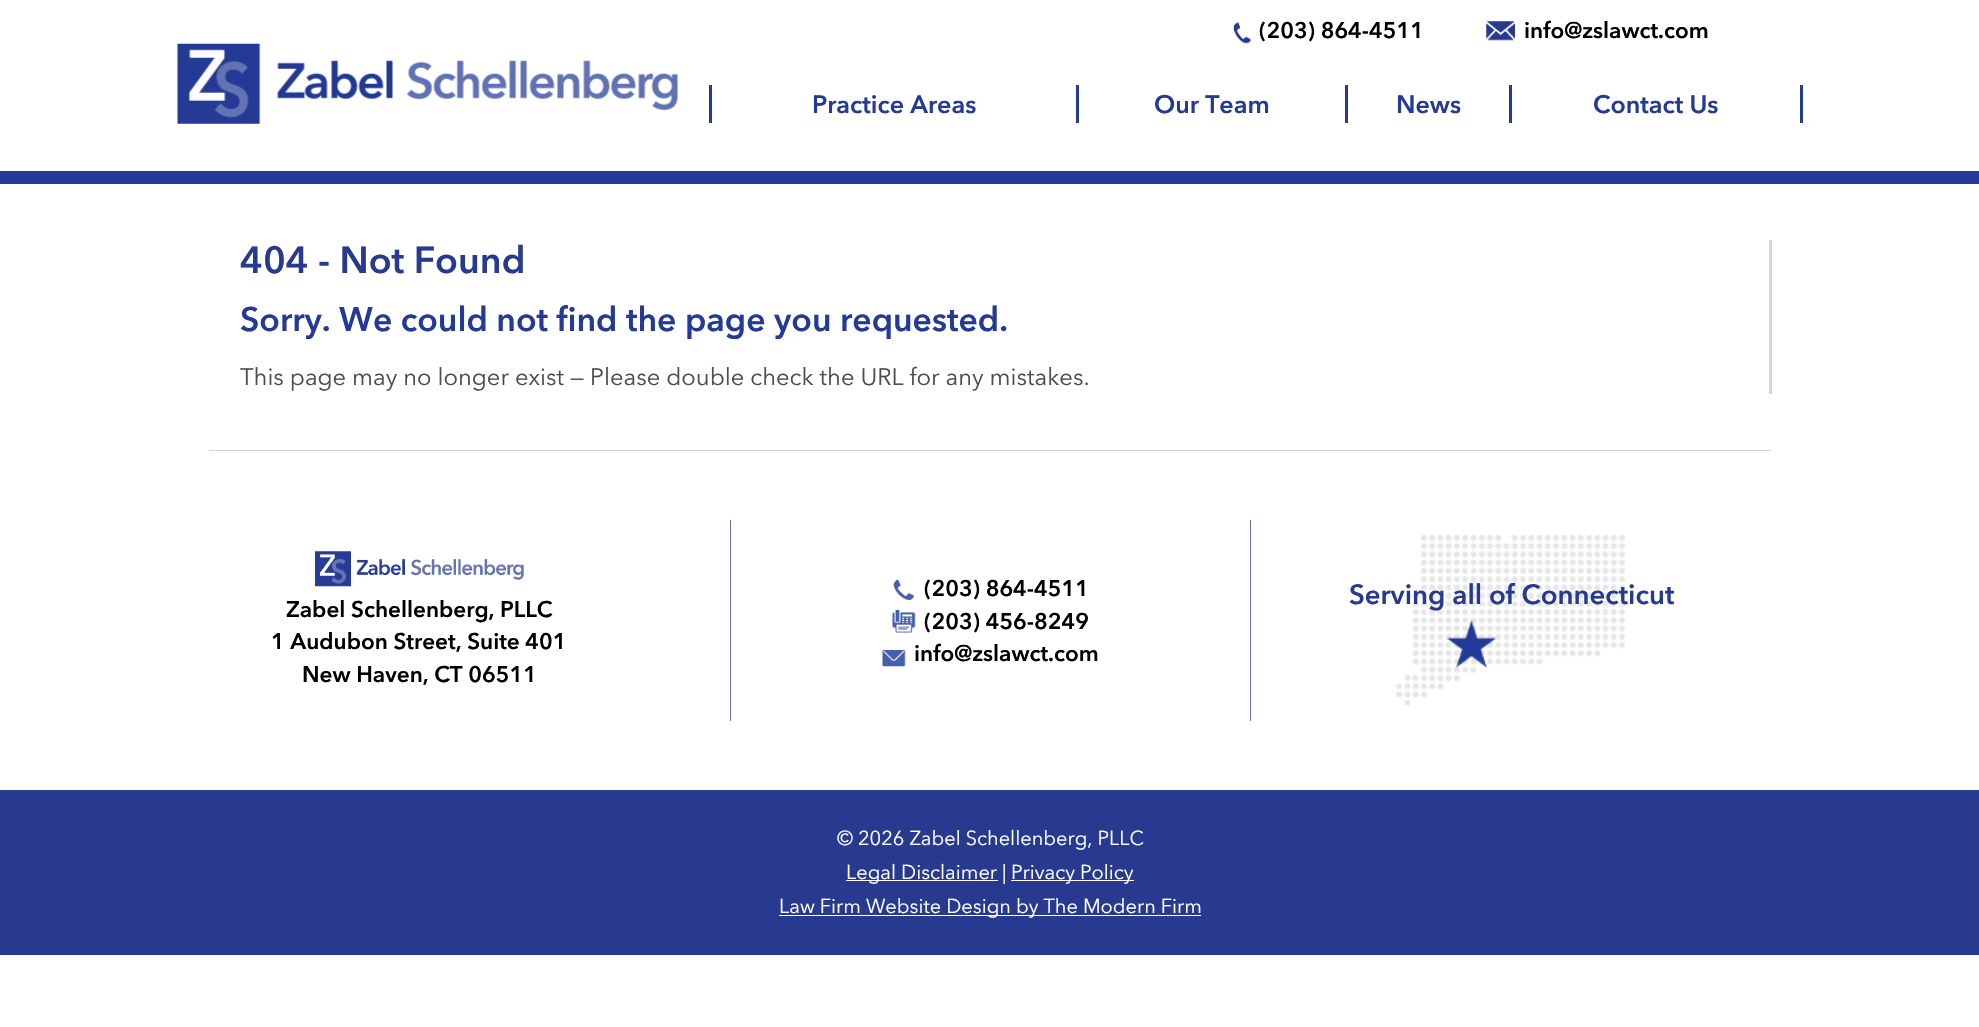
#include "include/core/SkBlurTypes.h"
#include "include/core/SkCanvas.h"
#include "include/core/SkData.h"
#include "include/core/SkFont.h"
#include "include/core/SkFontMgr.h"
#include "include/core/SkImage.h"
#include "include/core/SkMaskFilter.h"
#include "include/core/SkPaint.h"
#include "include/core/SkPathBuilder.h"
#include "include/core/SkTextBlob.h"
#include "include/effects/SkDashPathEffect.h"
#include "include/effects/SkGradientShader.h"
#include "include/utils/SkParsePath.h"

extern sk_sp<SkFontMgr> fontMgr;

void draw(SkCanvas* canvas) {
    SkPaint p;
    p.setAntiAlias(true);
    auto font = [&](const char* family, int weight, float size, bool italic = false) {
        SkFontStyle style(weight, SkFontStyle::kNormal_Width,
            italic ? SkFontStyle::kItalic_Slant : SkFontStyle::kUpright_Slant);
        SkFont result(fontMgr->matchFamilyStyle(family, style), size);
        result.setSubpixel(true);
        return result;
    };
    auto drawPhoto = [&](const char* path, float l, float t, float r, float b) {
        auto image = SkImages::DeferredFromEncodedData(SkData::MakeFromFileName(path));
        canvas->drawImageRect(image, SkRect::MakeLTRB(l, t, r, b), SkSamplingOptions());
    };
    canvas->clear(0xFFFFFFFF);
    drawPhoto("media/1.png", 1233, 22, 1251, 44);
    auto font1 = font("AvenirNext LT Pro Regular", 700, 22.5f);
    p.setColor(0xFF000000);
    canvas->drawString("(203) 864-4511", 1259, 38, font1, p);
    drawPhoto("media/2.png", 1486, 21, 1515, 41);
    canvas->drawString("info@zslawct.com", 1524, 38, font1, p);
    p.setColor(0xFF243A96);
    canvas->drawRect(SkRect::MakeLTRB(0, 171, 1979, 184), p);
    drawPhoto("media/3.png", 177, 43, 678, 124);
    canvas->drawRect(SkRect::MakeLTRB(709, 85, 712, 123), p);
    auto font2 = font("AvenirNext LT Pro Regular", 700, 25);
    canvas->drawString("Practice Areas", 812, 113, font2, p);
    canvas->drawRect(SkRect::MakeLTRB(1076, 85, 1079, 123), p);
    canvas->drawString("Our Team", 1154, 113, font2, p);
    canvas->drawRect(SkRect::MakeLTRB(1345, 85, 1348, 123), p);
    canvas->drawString("News", 1396, 113, font2, p);
    canvas->drawRect(SkRect::MakeLTRB(1800, 85, 1803, 123), p);
    canvas->drawRect(SkRect::MakeLTRB(1509, 85, 1512, 123), p);
    canvas->drawString("Contact Us", 1593, 113, font2, p);
    p.setColor(0xFFD4D5D5);
    canvas->drawRect(SkRect::MakeLTRB(1769, 240, 1772, 394), p);
    auto font3 = font("AvenirNext LT Pro Regular", 700, 37.5f);
    p.setColor(0xFF283A90);
    canvas->drawString("404 - Not Found", 240, 273, font3, p);
    auto font4 = font("AvenirNext LT Pro Regular", 700, 33.75f);
    p.setColor(0xFF243A96);
    canvas->drawString("Sorry. We could not find the page you requested.", 240, 331, font4, p);
    auto font5 = font("AvenirNext LT Pro Regular", 400, 23.75f);
    p.setColor(0xFF4C4C4C);
    canvas->drawString("This page may no longer exist — Please double check the URL for any mistakes.", 240, 385, font5, p);
    p.setColor(0xFFD4D5D5);
    canvas->drawRect(SkRect::MakeLTRB(209, 450, 1771, 451), p);
    p.setColor(0xFF6774AB);
    canvas->drawRect(SkRect::MakeLTRB(730, 520, 731, 721), p);
    drawPhoto("media/4.png", 893, 580, 915, 600);
    p.setColor(0xFF000000);
    canvas->drawString("(203) 864-4511", 924, 596, font1, p);
    drawPhoto("media/5.png", 892, 610, 916, 633);
    canvas->drawString("(203) 456-8249", 924, 629, font1, p);
    drawPhoto("media/6.png", 882, 650, 906, 667);
    canvas->drawString("info@zslawct.com", 914, 661, font1, p);
    drawPhoto("media/7.png", 1396, 535, 1625, 706);
    p.setColor(0xFF6774AB);
    canvas->drawRect(SkRect::MakeLTRB(1250, 520, 1251, 721), p);
    auto font6 = font("AvenirNext LT Pro Regular", 700, 27.5f);
    p.setColor(0xFF283A90);
    canvas->drawString("Serving all of Connecticut", 1349, 604, font6, p);
    drawPhoto("media/8.png", 315, 551, 524, 587);
    p.setColor(0xFF000000);
    {
        const struct { const char* s; float x, y; } items[] = {
            {"Zabel Schellenberg, PLLC", 286, 617},
            {"1 Audubon Street, Suite 401", 271, 649},
            {"New Haven, CT 06511", 302, 682},
        };
        for (auto [s, x, y] : items) {
            canvas->drawString(s, x, y, font1, p);
        }
    }
    p.setColor(0xFF273A90);
    canvas->drawRect(SkRect::MakeLTRB(0, 790, 1979, 955), p);
    auto font7 = font("AvenirNext LT Pro Regular", 400, 20);
    p.setColor(0xFFFFFFFF);
    canvas->drawString("© 2026 Zabel Schellenberg, PLLC", 837, 845, font7, p);
    canvas->drawRect(SkRect::MakeLTRB(846, 880, 998, 881), p);
    canvas->drawString("Legal Disclaimer |", 846, 879, font7, p);
    canvas->drawRect(SkRect::MakeLTRB(1011, 880, 1134, 881), p);
    canvas->drawString("Privacy Policy", 1011, 879, font7, p);
    canvas->drawRect(SkRect::MakeLTRB(779, 915, 1201, 916), p);
    canvas->drawString("Law Firm Website Design by The Modern Firm", 779, 913, font7, p);
}
